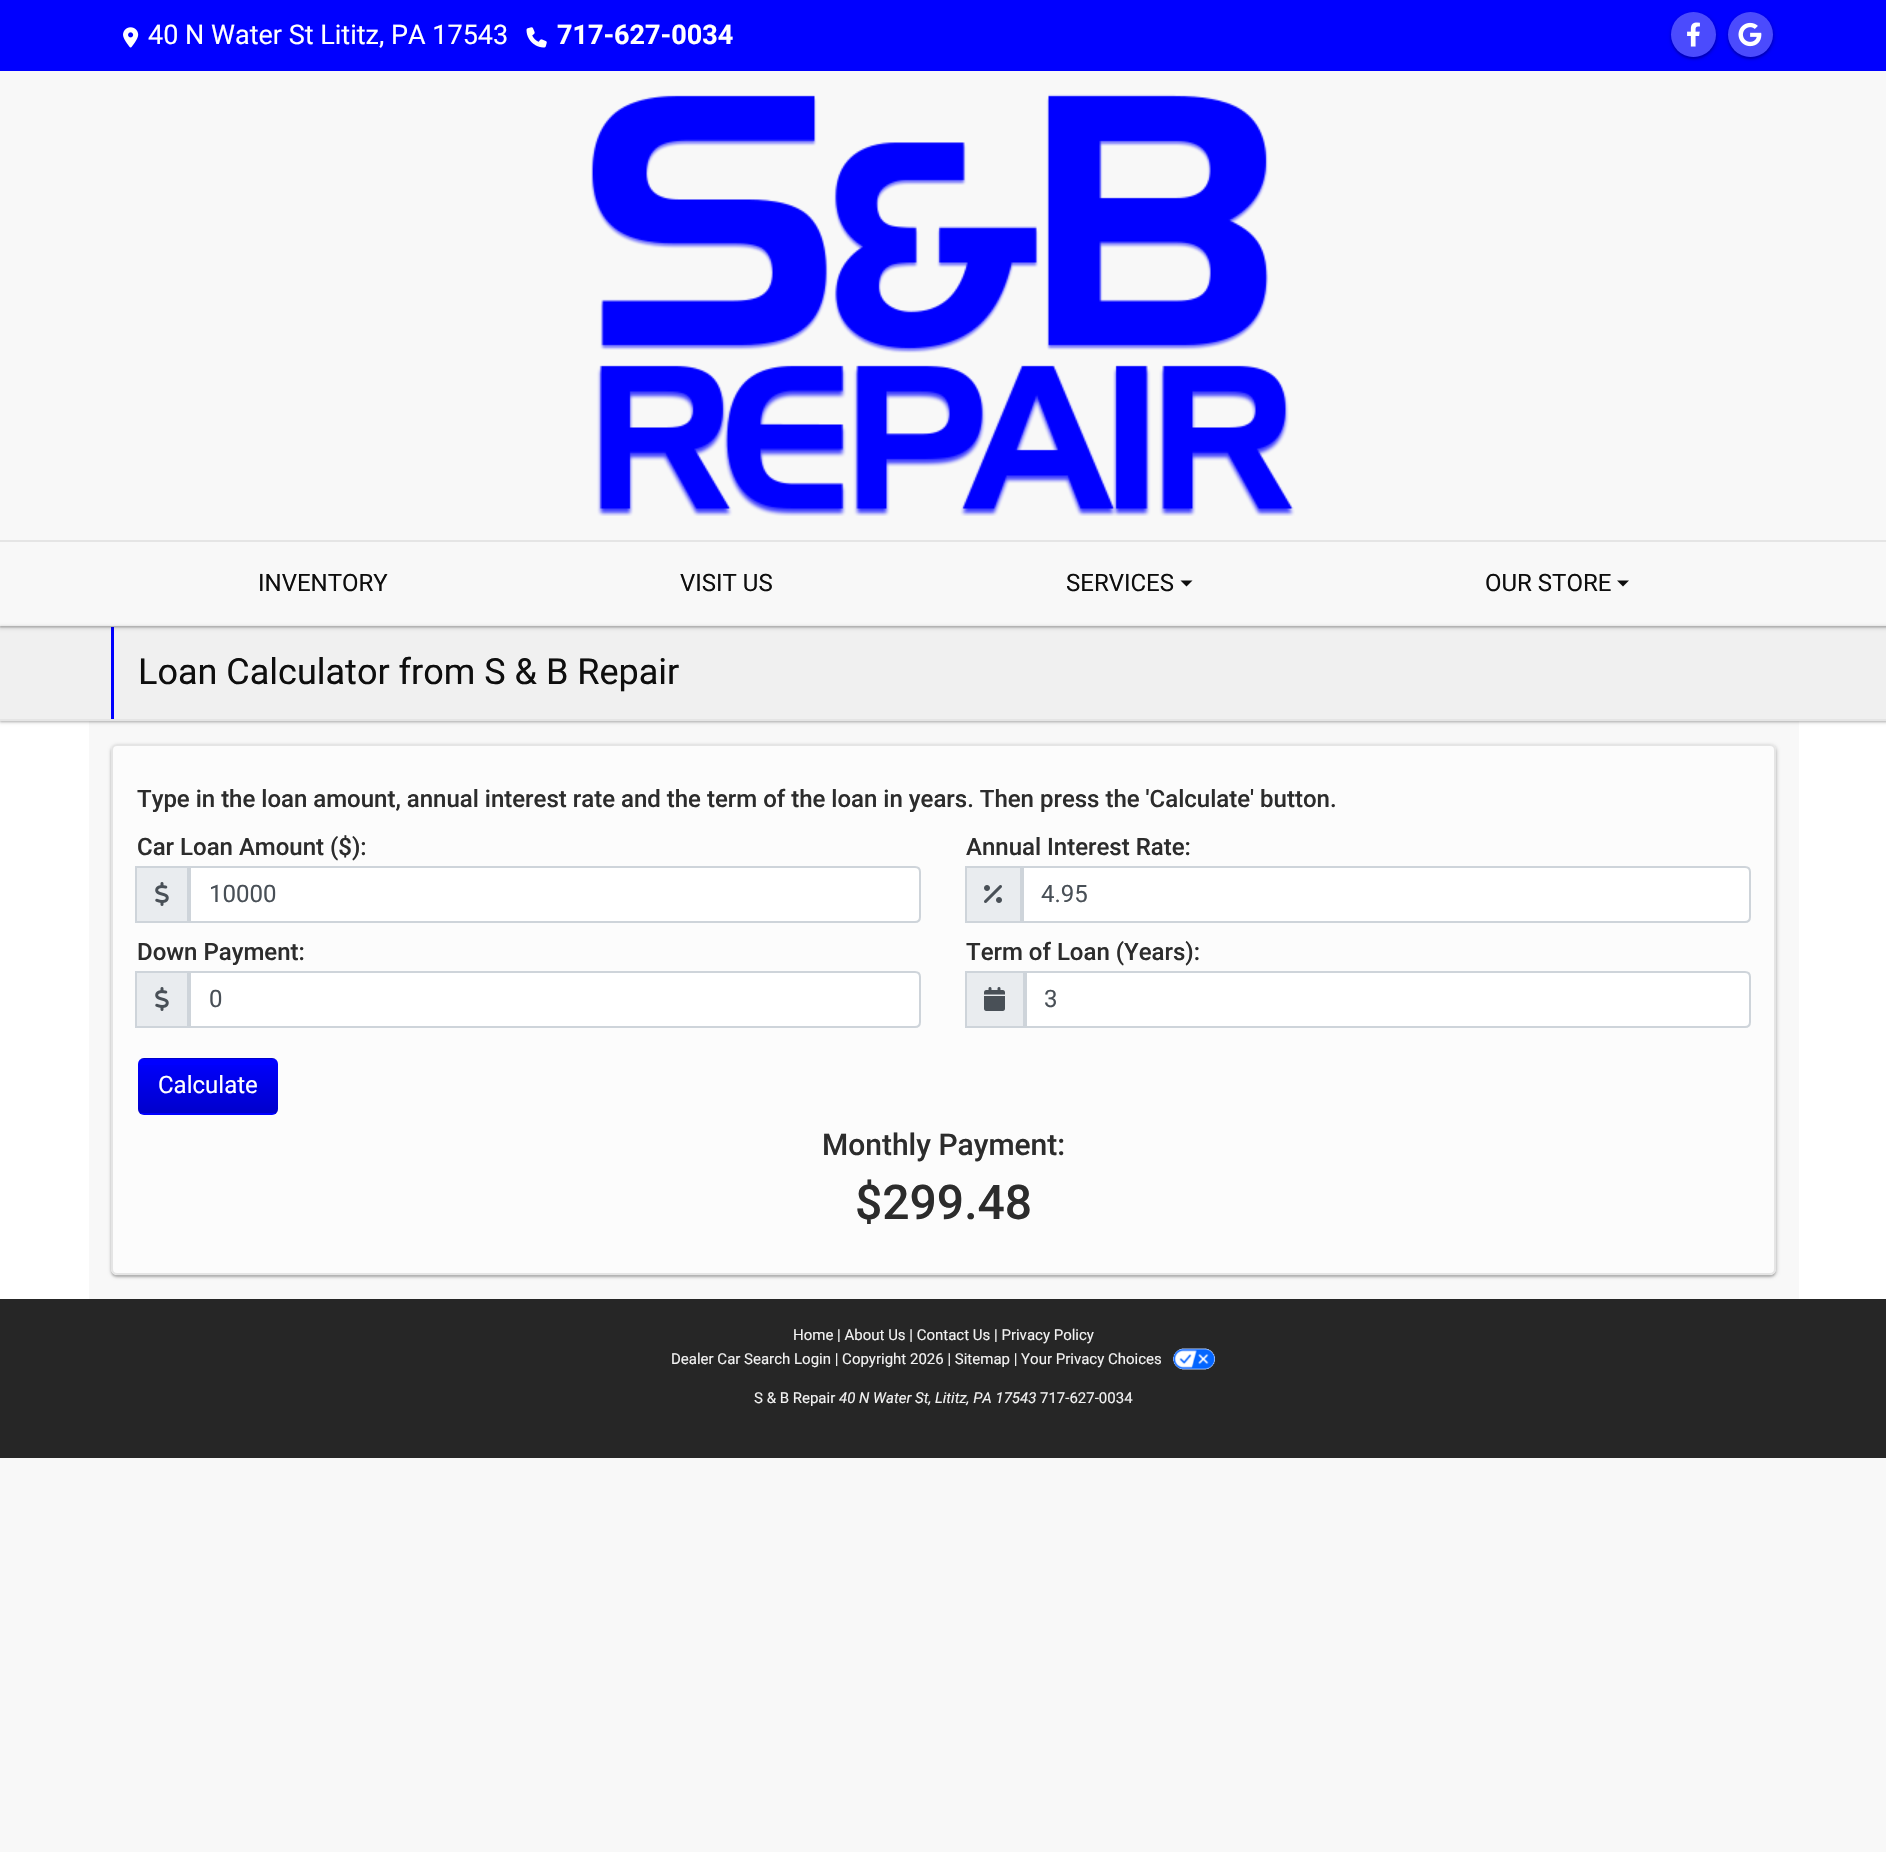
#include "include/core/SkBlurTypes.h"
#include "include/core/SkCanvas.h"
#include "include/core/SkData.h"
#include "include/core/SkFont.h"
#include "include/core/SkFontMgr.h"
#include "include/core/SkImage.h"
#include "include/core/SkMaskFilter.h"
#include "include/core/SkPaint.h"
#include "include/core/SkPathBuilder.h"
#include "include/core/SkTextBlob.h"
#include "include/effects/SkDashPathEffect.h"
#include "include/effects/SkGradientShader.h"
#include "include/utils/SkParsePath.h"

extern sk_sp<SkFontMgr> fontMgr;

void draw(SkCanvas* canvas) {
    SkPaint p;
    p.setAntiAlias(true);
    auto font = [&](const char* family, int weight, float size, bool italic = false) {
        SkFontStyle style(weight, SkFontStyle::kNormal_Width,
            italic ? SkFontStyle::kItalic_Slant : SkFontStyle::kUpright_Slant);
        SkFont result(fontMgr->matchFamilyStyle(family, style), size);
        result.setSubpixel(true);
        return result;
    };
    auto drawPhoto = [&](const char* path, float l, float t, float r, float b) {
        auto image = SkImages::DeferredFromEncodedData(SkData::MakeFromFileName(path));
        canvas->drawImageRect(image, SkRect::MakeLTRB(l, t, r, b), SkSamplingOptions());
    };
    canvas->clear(0xFFF8F8F8);
    p.setColor(0xFFFFFFFF);
    canvas->drawRect(SkRect::MakeLTRB(0, 721, 1886, 1299), p);
    p.setColor(0xFFF8F8F8);
    canvas->drawRect(SkRect::MakeLTRB(89, 721, 1799, 1299), p);
    p.setColor(0x33000000);
    p.setMaskFilter(SkMaskFilter::MakeBlur(kNormal_SkBlurStyle, 1));
    canvas->drawRect(SkRect::MakeLTRB(0, 627, 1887, 722), p);
    p.setMaskFilter(nullptr);
    p.setColor(0x1A000000);
    p.setMaskFilter(SkMaskFilter::MakeBlur(kNormal_SkBlurStyle, 1.5f));
    canvas->drawRect(SkRect::MakeLTRB(-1, 626, 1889, 723), p);
    p.setMaskFilter(nullptr);
    {
        const struct { float l, t, r, b; SkColor color; } items[] = {
            {0, 628, 1886, 719, 0xFFF0F0F0},
            {0, 626, 1886, 628, 0xFFE5E5E5},
            {111, 627, 114, 719, 0xFF0000FF},
        };
        for (auto [l, t, r, b, color] : items) {
            p.setColor(color);
            canvas->drawRect(SkRect::MakeLTRB(l, t, r, b), p);
        }
    }
    canvas->save();
    canvas->clipPath(SkPathBuilder(SkPathFillType::kEvenOdd).moveTo(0, 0).lineTo(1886, 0).lineTo(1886, 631).lineTo(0, 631).close().moveTo(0, 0).lineTo(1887, 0).lineTo(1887, 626).lineTo(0, 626).close().detach(), true);
    p.setColor(0x33000000);
    p.setMaskFilter(SkMaskFilter::MakeBlur(kNormal_SkBlurStyle, 1));
    canvas->drawRect(SkRect::MakeLTRB(0, 2, 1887, 627), p);
    p.setMaskFilter(nullptr);
    canvas->restore();
    canvas->save();
    canvas->clipPath(SkPathBuilder(SkPathFillType::kEvenOdd).moveTo(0, 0).lineTo(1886, 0).lineTo(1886, 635).lineTo(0, 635).close().moveTo(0, 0).lineTo(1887, 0).lineTo(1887, 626).lineTo(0, 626).close().detach(), true);
    p.setColor(0x1A000000);
    p.setMaskFilter(SkMaskFilter::MakeBlur(kNormal_SkBlurStyle, 1.5f));
    canvas->drawRect(SkRect::MakeLTRB(-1, 0, 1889, 629), p);
    p.setMaskFilter(nullptr);
    canvas->restore();
    p.setColor(0xFF0000FF);
    canvas->drawRect(SkRect::MakeLTRB(0, 0, 1886, 71), p);
    drawPhoto("media/1.png", 123, 27, 139, 48);
    auto font1 = font("Roboto", 400, 27);
    p.setColor(0xFFFFFFFF);
    canvas->drawString("40 N Water St Lititz, PA 17543", 148, 44, font1, p);
    drawPhoto("media/2.png", 526, 27, 547, 48);
    auto font2 = font("Roboto", 700, 27);
    canvas->drawString("717-627-0034", 557, 44, font2, p);
    canvas->save();
    canvas->clipPath(SkPathBuilder(SkPathFillType::kEvenOdd).moveTo(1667, 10).lineTo(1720, 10).lineTo(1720, 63).lineTo(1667, 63).close().moveTo(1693.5f, 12).cubicTo(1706, 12, 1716, 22, 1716, 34.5f).cubicTo(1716, 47, 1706, 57, 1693.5f, 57).cubicTo(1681, 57, 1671, 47, 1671, 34.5f).cubicTo(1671, 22, 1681, 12, 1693.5f, 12).close().detach(), true);
    p.setColor(0x33000000);
    p.setMaskFilter(SkMaskFilter::MakeBlur(kNormal_SkBlurStyle, 1));
    canvas->drawRoundRect(SkRect::MakeLTRB(1671, 14, 1716, 59), 22.5f, 22.5f, p);
    p.setMaskFilter(nullptr);
    canvas->restore();
    canvas->save();
    canvas->clipPath(SkPathBuilder(SkPathFillType::kEvenOdd).moveTo(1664, 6).lineTo(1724, 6).lineTo(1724, 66).lineTo(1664, 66).close().moveTo(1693.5f, 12).cubicTo(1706, 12, 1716, 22, 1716, 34.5f).cubicTo(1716, 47, 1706, 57, 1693.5f, 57).cubicTo(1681, 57, 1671, 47, 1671, 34.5f).cubicTo(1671, 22, 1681, 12, 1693.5f, 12).close().detach(), true);
    p.setColor(0x1A000000);
    p.setMaskFilter(SkMaskFilter::MakeBlur(kNormal_SkBlurStyle, 1.5f));
    canvas->drawRoundRect(SkRect::MakeLTRB(1670, 12, 1718, 60), 24, 24, p);
    p.setMaskFilter(nullptr);
    canvas->restore();
    p.setColor(0x4DF8F8F8);
    canvas->drawCircle(1693.5f, 34.5f, 22.5f, p);
    drawPhoto("media/3.png", 1687, 22, 1700, 47);
    canvas->save();
    canvas->clipPath(SkPathBuilder(SkPathFillType::kEvenOdd).moveTo(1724, 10).lineTo(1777, 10).lineTo(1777, 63).lineTo(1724, 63).close().moveTo(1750.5f, 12).cubicTo(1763, 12, 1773, 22, 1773, 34.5f).cubicTo(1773, 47, 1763, 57, 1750.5f, 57).cubicTo(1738, 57, 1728, 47, 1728, 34.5f).cubicTo(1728, 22, 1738, 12, 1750.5f, 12).close().detach(), true);
    p.setColor(0x33000000);
    p.setMaskFilter(SkMaskFilter::MakeBlur(kNormal_SkBlurStyle, 1));
    canvas->drawRoundRect(SkRect::MakeLTRB(1728, 14, 1773, 59), 22.5f, 22.5f, p);
    p.setMaskFilter(nullptr);
    canvas->restore();
    canvas->save();
    canvas->clipPath(SkPathBuilder(SkPathFillType::kEvenOdd).moveTo(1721, 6).lineTo(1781, 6).lineTo(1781, 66).lineTo(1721, 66).close().moveTo(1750.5f, 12).cubicTo(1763, 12, 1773, 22, 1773, 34.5f).cubicTo(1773, 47, 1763, 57, 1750.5f, 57).cubicTo(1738, 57, 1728, 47, 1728, 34.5f).cubicTo(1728, 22, 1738, 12, 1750.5f, 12).close().detach(), true);
    p.setColor(0x1A000000);
    p.setMaskFilter(SkMaskFilter::MakeBlur(kNormal_SkBlurStyle, 1.5f));
    canvas->drawRoundRect(SkRect::MakeLTRB(1727, 12, 1775, 60), 24, 24, p);
    p.setMaskFilter(nullptr);
    canvas->restore();
    p.setColor(0x4DF8F8F8);
    canvas->drawCircle(1750.5f, 34.5f, 22.5f, p);
    drawPhoto("media/4.png", 1738, 22, 1762, 47);
    drawPhoto("media/5.png", 591, 94, 1295, 516);
    p.setColor(0xFFE5E5E5);
    canvas->drawRect(SkRect::MakeLTRB(0, 540, 1886, 542), p);
    auto font3 = font("Roboto", 400, 24);
    p.setColor(0xFF0E0E0E);
    {
        const struct { const char* s; float x, y; } items[] = {
            {"INVENTORY", 258, 591},
            {"VISIT US", 680, 591},
            {"SERVICES", 1066, 591},
        };
        for (auto [s, x, y] : items) {
            canvas->drawString(s, x, y, font3, p);
        }
    }
    canvas->drawPath(SkPathBuilder().moveTo(1180.5f, 580.5f).lineTo(1192.5f, 580.5f).lineTo(1186.5f, 586.5f).close().detach(), p);
    canvas->drawString("OUR STORE", 1485, 591, font3, p);
    canvas->drawPath(SkPathBuilder().moveTo(1617, 580.5f).lineTo(1629, 580.5f).lineTo(1623, 586.5f).close().detach(), p);
    p.setColor(0xFFE5E5E5);
    canvas->drawRect(SkRect::MakeLTRB(0, 719, 1886, 721), p);
    auto font4 = font("Roboto", 400, 36);
    p.setColor(0xFF0E0E0E);
    canvas->drawString("Loan Calculator from S & B Repair", 138, 684, font4, p);
    canvas->save();
    canvas->clipPath(SkPathBuilder(SkPathFillType::kEvenOdd).moveTo(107, 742).lineTo(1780, 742).lineTo(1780, 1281).lineTo(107, 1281).close().moveTo(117, 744).lineTo(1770, 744).cubicTo(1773.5f, 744, 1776, 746.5f, 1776, 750).lineTo(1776, 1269).cubicTo(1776, 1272.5f, 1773.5f, 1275, 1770, 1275).lineTo(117, 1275).cubicTo(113.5f, 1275, 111, 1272.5f, 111, 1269).lineTo(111, 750).cubicTo(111, 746.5f, 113.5f, 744, 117, 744).close().detach(), true);
    p.setColor(0x33000000);
    p.setMaskFilter(SkMaskFilter::MakeBlur(kNormal_SkBlurStyle, 1));
    canvas->drawRoundRect(SkRect::MakeLTRB(111, 746, 1776, 1277), 6, 6, p);
    p.setMaskFilter(nullptr);
    canvas->restore();
    canvas->save();
    canvas->clipPath(SkPathBuilder(SkPathFillType::kEvenOdd).moveTo(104, 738).lineTo(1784, 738).lineTo(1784, 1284).lineTo(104, 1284).close().moveTo(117, 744).lineTo(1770, 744).cubicTo(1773.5f, 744, 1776, 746.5f, 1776, 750).lineTo(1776, 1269).cubicTo(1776, 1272.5f, 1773.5f, 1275, 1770, 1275).lineTo(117, 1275).cubicTo(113.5f, 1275, 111, 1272.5f, 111, 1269).lineTo(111, 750).cubicTo(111, 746.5f, 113.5f, 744, 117, 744).close().detach(), true);
    p.setColor(0x1A000000);
    p.setMaskFilter(SkMaskFilter::MakeBlur(kNormal_SkBlurStyle, 1.5f));
    canvas->drawRoundRect(SkRect::MakeLTRB(110, 744, 1778, 1278), 8, 8, p);
    p.setMaskFilter(nullptr);
    canvas->restore();
    p.setColor(0x99FFFFFF);
    canvas->drawRoundRect(SkRect::MakeLTRB(112, 745, 1775, 1274), 5, 5, p);
    p.setStyle(SkPaint::kStroke_Style);
    p.setStrokeWidth(2);
    p.setColor(0xFFE5E5E5);
    canvas->drawRoundRect(SkRect::MakeLTRB(112, 745, 1775, 1274), 5, 5, p);
    auto font5 = font("Roboto", 500, 24);
    p.setStyle(SkPaint::kFill_Style);
    p.setColor(0xFF2C2C2C);
    canvas->drawString("Type in the loan amount, annual interest rate and the term of the loan in years. Then press the 'Calculate' button.", 137, 807, font5, p);
    canvas->drawString("Car Loan Amount ($):", 137, 855, font5, p);
    p.setColor(0xFFE9ECEF);
    canvas->drawRect(SkRect::MakeLTRB(136, 867, 188, 922), p);
    p.setStyle(SkPaint::kStroke_Style);
    p.setColor(0xFFCED4DA);
    canvas->drawRect(SkRect::MakeLTRB(136, 867, 188, 922), p);
    drawPhoto("media/6.png", 155, 882, 169, 906);
    p.setStyle(SkPaint::kFill_Style);
    p.setColor(0xFFFFFFFF);
    canvas->drawPath(SkPathBuilder().moveTo(190, 867).lineTo(915, 867).cubicTo(918, 867, 920, 869, 920, 872).lineTo(920, 917).cubicTo(920, 920, 918, 922, 915, 922).lineTo(190, 922).close().detach(), p);
    p.setStyle(SkPaint::kStroke_Style);
    p.setColor(0xFFCED4DA);
    canvas->drawPath(SkPathBuilder().moveTo(190, 867).lineTo(915, 867).cubicTo(918, 867, 920, 869, 920, 872).lineTo(920, 917).cubicTo(920, 920, 918, 922, 915, 922).lineTo(190, 922).close().detach(), p);
    p.setStyle(SkPaint::kFill_Style);
    p.setColor(0xFF495057);
    canvas->drawString("10000", 209, 902, font3, p);
    p.setColor(0xFF2C2C2C);
    canvas->drawString("Down Payment:", 137, 960, font5, p);
    p.setColor(0xFFE9ECEF);
    canvas->drawRect(SkRect::MakeLTRB(136, 972, 188, 1027), p);
    p.setStyle(SkPaint::kStroke_Style);
    p.setColor(0xFFCED4DA);
    canvas->drawRect(SkRect::MakeLTRB(136, 972, 188, 1027), p);
    drawPhoto("media/6.png", 155, 987, 169, 1011);
    p.setStyle(SkPaint::kFill_Style);
    p.setColor(0xFFFFFFFF);
    canvas->drawPath(SkPathBuilder().moveTo(190, 972).lineTo(915, 972).cubicTo(918, 972, 920, 974, 920, 977).lineTo(920, 1022).cubicTo(920, 1025, 918, 1027, 915, 1027).lineTo(190, 1027).close().detach(), p);
    p.setStyle(SkPaint::kStroke_Style);
    p.setColor(0xFFCED4DA);
    canvas->drawPath(SkPathBuilder().moveTo(190, 972).lineTo(915, 972).cubicTo(918, 972, 920, 974, 920, 977).lineTo(920, 1022).cubicTo(920, 1025, 918, 1027, 915, 1027).lineTo(190, 1027).close().detach(), p);
    p.setStyle(SkPaint::kFill_Style);
    p.setColor(0xFF495057);
    canvas->drawString("0", 209, 1007, font3, p);
    p.setColor(0xFF2C2C2C);
    canvas->drawString("Annual Interest Rate:", 966, 855, font5, p);
    p.setColor(0xFFE9ECEF);
    canvas->drawRect(SkRect::MakeLTRB(966, 867, 1021, 922), p);
    p.setStyle(SkPaint::kStroke_Style);
    p.setColor(0xFFCED4DA);
    canvas->drawRect(SkRect::MakeLTRB(966, 867, 1021, 922), p);
    drawPhoto("media/7.png", 984, 885, 1002, 903);
    p.setStyle(SkPaint::kFill_Style);
    p.setColor(0xFFFFFFFF);
    canvas->drawPath(SkPathBuilder().moveTo(1023, 867).lineTo(1745, 867).cubicTo(1748, 867, 1750, 869, 1750, 872).lineTo(1750, 917).cubicTo(1750, 920, 1748, 922, 1745, 922).lineTo(1023, 922).close().detach(), p);
    p.setStyle(SkPaint::kStroke_Style);
    p.setColor(0xFFCED4DA);
    canvas->drawPath(SkPathBuilder().moveTo(1023, 867).lineTo(1745, 867).cubicTo(1748, 867, 1750, 869, 1750, 872).lineTo(1750, 917).cubicTo(1750, 920, 1748, 922, 1745, 922).lineTo(1023, 922).close().detach(), p);
    p.setStyle(SkPaint::kFill_Style);
    p.setColor(0xFF495057);
    canvas->drawString("4.95", 1041, 902, font3, p);
    p.setColor(0xFF2C2C2C);
    canvas->drawString("Term of Loan (Years):", 966, 960, font5, p);
    p.setColor(0xFFE9ECEF);
    canvas->drawRect(SkRect::MakeLTRB(966, 972, 1024, 1027), p);
    p.setStyle(SkPaint::kStroke_Style);
    p.setColor(0xFFCED4DA);
    canvas->drawRect(SkRect::MakeLTRB(966, 972, 1024, 1027), p);
    drawPhoto("media/8.png", 984, 987, 1005, 1011);
    p.setStyle(SkPaint::kFill_Style);
    p.setColor(0xFFFFFFFF);
    canvas->drawPath(SkPathBuilder().moveTo(1026, 972).lineTo(1745, 972).cubicTo(1748, 972, 1750, 974, 1750, 977).lineTo(1750, 1022).cubicTo(1750, 1025, 1748, 1027, 1745, 1027).lineTo(1026, 1027).close().detach(), p);
    p.setStyle(SkPaint::kStroke_Style);
    p.setColor(0xFFCED4DA);
    canvas->drawPath(SkPathBuilder().moveTo(1026, 972).lineTo(1745, 972).cubicTo(1748, 972, 1750, 974, 1750, 977).lineTo(1750, 1022).cubicTo(1750, 1025, 1748, 1027, 1745, 1027).lineTo(1026, 1027).close().detach(), p);
    p.setStyle(SkPaint::kFill_Style);
    p.setColor(0xFF495057);
    canvas->drawString("3", 1044, 1007, font3, p);
    p.setColor(0xFF0000FF);
    canvas->drawRoundRect(SkRect::MakeLTRB(138, 1058, 278, 1115), 6, 6, p);
    canvas->save();
    canvas->clipPath(SkPathBuilder().moveTo(144, 1058).lineTo(272, 1058).cubicTo(275.5f, 1058, 278, 1060.5f, 278, 1064).lineTo(278, 1109).cubicTo(278, 1112.5f, 275.5f, 1115, 272, 1115).lineTo(144, 1115).cubicTo(140.5f, 1115, 138, 1112.5f, 138, 1109).lineTo(138, 1064).cubicTo(138, 1060.5f, 140.5f, 1058, 144, 1058).close().detach(), true);
    {
        const SkColor colors[] = {0x00000000, 0x33000000};
        const float stops[] = {0, 1};
        const SkPoint ends[] = {{208, 1005}, {208, 1059}};
        p.setShader(SkGradientShader::MakeLinear(ends, colors, stops, 2, SkTileMode::kClamp));
        p.setAlpha(255);
    }
    canvas->drawRect(SkRect::MakeLTRB(138, 1058, 278, 1059), p);
    {
        const SkColor colors[] = {0x00000000, 0x33000000};
        const float stops[] = {0, 1};
        const SkPoint ends[] = {{208, 1059}, {208, 1113}};
        p.setShader(SkGradientShader::MakeLinear(ends, colors, stops, 2, SkTileMode::kClamp));
        p.setAlpha(255);
    }
    canvas->drawRect(SkRect::MakeLTRB(138, 1065, 278, 1113), p);
    canvas->restore();
    p.setShader(nullptr);
    p.setColor(0xFFFFFFFF);
    canvas->drawString("Calculate", 158, 1093, font3, p);
    auto font6 = font("Roboto", 500, 30);
    p.setColor(0xFF2C2C2C);
    canvas->drawString("Monthly Payment:", 822, 1155, font6, p);
    auto font7 = font("Roboto", 500, 48);
    canvas->drawString("$299.48", 855, 1219, font7, p);
    p.setColor(0xFF262626);
    canvas->drawRect(SkRect::MakeLTRB(0, 1299, 1886, 1458), p);
    auto font8 = font("Roboto", 400, 15);
    p.setColor(0xFFF2F2F2);
    canvas->drawString("Home | About Us | Contact Us | Privacy Policy", 793, 1340, font8, p);
    canvas->drawString("Dealer Car Search Login | Copyright 2026 | Sitemap | Your Privacy Choices", 671, 1364, font8, p);
    drawPhoto("media/9.png", 1173, 1348, 1215, 1370);
    canvas->drawString("S & B Repair", 754, 1403, font8, p);
    auto font9 = font("Roboto", 400, 15, true);
    canvas->drawString("40 N Water St, Lititz, PA 17543", 839, 1403, font9, p);
    canvas->drawString("717-627-0034", 1040, 1403, font8, p);
}
